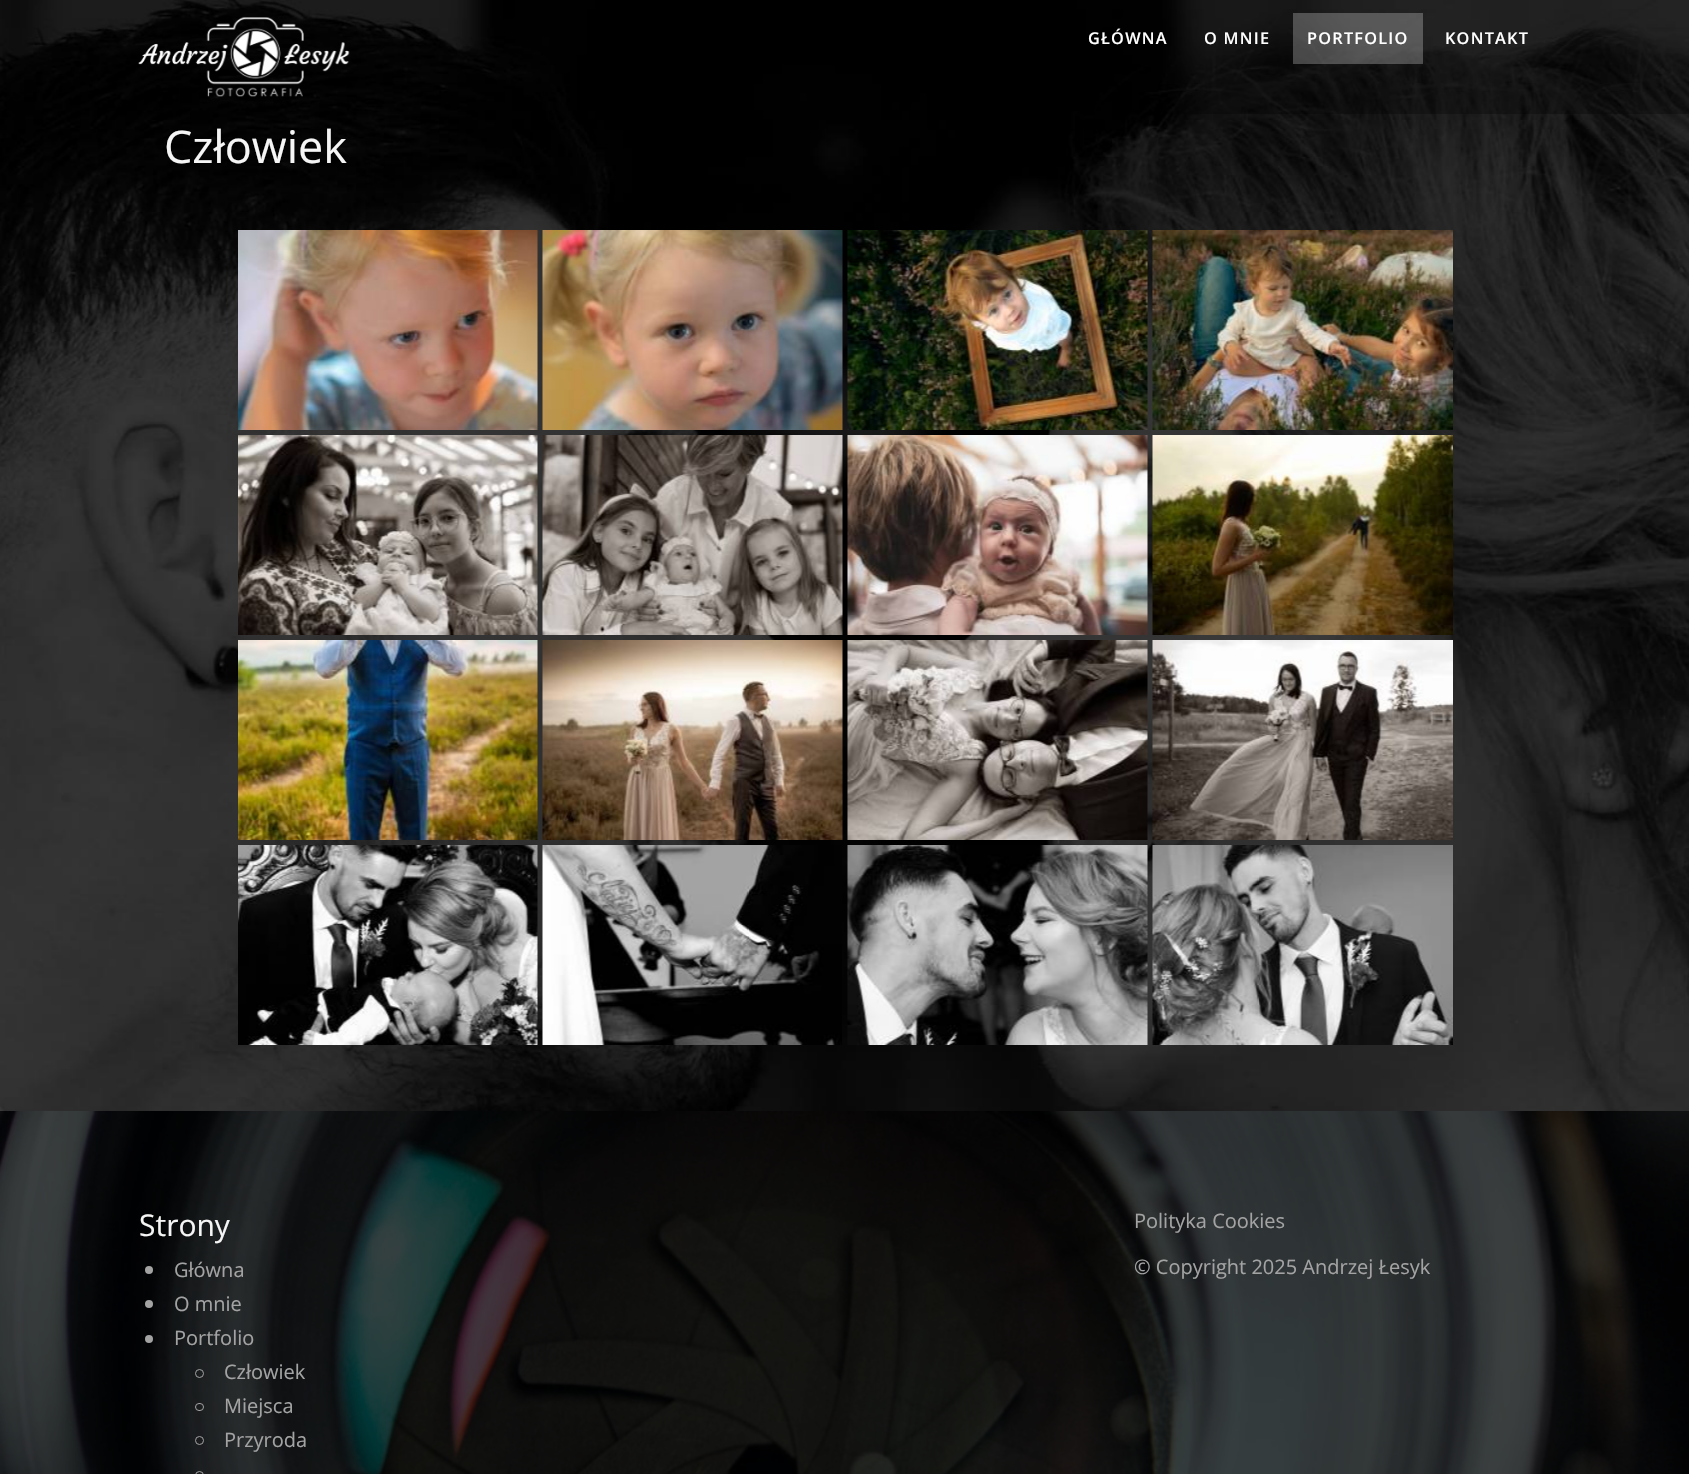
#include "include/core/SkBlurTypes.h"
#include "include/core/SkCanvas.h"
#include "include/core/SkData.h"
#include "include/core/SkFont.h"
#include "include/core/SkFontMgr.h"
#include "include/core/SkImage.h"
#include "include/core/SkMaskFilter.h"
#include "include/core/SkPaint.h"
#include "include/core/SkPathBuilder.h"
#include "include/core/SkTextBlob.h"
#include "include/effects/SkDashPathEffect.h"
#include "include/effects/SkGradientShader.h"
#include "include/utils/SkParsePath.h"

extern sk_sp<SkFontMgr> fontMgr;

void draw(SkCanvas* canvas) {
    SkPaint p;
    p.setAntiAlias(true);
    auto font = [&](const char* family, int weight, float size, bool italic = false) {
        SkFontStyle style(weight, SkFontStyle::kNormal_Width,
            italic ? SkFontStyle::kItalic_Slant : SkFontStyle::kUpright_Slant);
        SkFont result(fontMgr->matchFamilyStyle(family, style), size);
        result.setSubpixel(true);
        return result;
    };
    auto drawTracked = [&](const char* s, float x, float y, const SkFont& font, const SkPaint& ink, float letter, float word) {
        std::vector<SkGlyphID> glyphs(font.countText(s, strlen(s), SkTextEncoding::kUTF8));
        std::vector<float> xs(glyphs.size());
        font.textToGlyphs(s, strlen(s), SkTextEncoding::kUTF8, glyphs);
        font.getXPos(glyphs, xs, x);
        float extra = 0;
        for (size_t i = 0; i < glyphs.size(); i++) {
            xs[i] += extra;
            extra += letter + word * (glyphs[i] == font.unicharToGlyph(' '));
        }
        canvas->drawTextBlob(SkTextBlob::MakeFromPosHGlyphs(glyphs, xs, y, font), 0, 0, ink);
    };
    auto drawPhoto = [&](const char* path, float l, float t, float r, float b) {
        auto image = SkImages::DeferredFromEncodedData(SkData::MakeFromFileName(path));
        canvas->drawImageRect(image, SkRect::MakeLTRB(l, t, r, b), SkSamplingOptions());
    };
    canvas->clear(0xFFFFFFFF);
    drawPhoto("media/1.png", 0, 0, 1689, 1111);
    p.setColor(0x4D000000);
    canvas->drawRect(SkRect::MakeLTRB(0, 0, 1689, 114), p);
    drawPhoto("media/2.png", 138, 17, 350, 97);
    auto font1 = font("Open Sans", 600, 16.25f);
    p.setColor(0xFFFFFFFF);
    drawTracked("GŁÓWNA", 1088, 44, font1, p, 1.25f, 0);
    drawTracked("O MNIE", 1204, 44, font1, p, 1.25f, 0);
    p.setColor(0x40FFFFFF);
    canvas->drawRect(SkRect::MakeLTRB(1293, 13, 1423, 64), p);
    p.setColor(0xFFFFFFFF);
    drawTracked("PORTFOLIO", 1307, 44, font1, p, 1.25f, 0);
    drawTracked("KONTAKT", 1445, 44, font1, p, 1.25f, 0);
    auto font2 = font("Open Sans", 400, 45);
    p.setColor(0xFFF5F5F5);
    canvas->drawString("Człowiek", 164, 163, font2, p);
    drawPhoto("media/3.png", 238, 230, 538, 430);
    drawPhoto("media/4.png", 542, 230, 843, 430);
    drawPhoto("media/5.png", 847, 230, 1148, 430);
    drawPhoto("media/6.png", 1152, 230, 1453, 430);
    drawPhoto("media/7.png", 238, 435, 538, 635);
    drawPhoto("media/8.png", 542, 435, 843, 635);
    drawPhoto("media/9.png", 847, 435, 1148, 635);
    drawPhoto("media/10.png", 1152, 435, 1453, 635);
    drawPhoto("media/11.png", 238, 640, 538, 840);
    drawPhoto("media/12.png", 542, 640, 843, 840);
    drawPhoto("media/13.png", 847, 640, 1148, 840);
    drawPhoto("media/14.png", 1152, 640, 1453, 840);
    drawPhoto("media/15.png", 238, 845, 538, 1045);
    drawPhoto("media/16.png", 542, 845, 842, 1045);
    drawPhoto("media/17.png", 847, 845, 1148, 1045);
    drawPhoto("media/18.png", 1152, 845, 1453, 1045);
    drawPhoto("media/19.png", 0, 1111, 1689, 1474);
    auto font3 = font("Open Sans", 400, 30);
    canvas->drawString("Strony", 139, 1236, font3, p);
    p.setColor(0xFFA3A3A3);
    canvas->drawCircle(149, 1270, 4, p);
    auto font4 = font("Open Sans", 400, 20);
    canvas->drawString("Główna", 174, 1277, font4, p);
    canvas->drawCircle(149, 1304, 4, p);
    canvas->drawString("O mnie", 174, 1311, font4, p);
    canvas->drawCircle(149, 1339, 4, p);
    canvas->drawString("Portfolio", 174, 1345, font4, p);
    p.setStyle(SkPaint::kStroke_Style);
    p.setStrokeWidth(1);
    canvas->drawCircle(199.5f, 1373.5f, 4, p);
    p.setStyle(SkPaint::kFill_Style);
    canvas->drawString("Człowiek", 224, 1379, font4, p);
    p.setStyle(SkPaint::kStroke_Style);
    canvas->drawRoundRect(SkRect::MakeLTRB(195.5f, 1403.5f, 203.5f, 1410.5f), 3.5f, 3.5f, p);
    p.setStyle(SkPaint::kFill_Style);
    canvas->drawString("Miejsca", 224, 1413, font4, p);
    p.setStyle(SkPaint::kStroke_Style);
    canvas->drawCircle(199.5f, 1440.5f, 4, p);
    p.setStyle(SkPaint::kFill_Style);
    canvas->drawString("Przyroda", 224, 1447, font4, p);
    p.setStyle(SkPaint::kStroke_Style);
    canvas->drawCircle(199.5f, 1475.5f, 4, p);
    p.setStyle(SkPaint::kFill_Style);
    canvas->drawString("Polityka Cookies", 1134, 1228, font4, p);
    canvas->drawString("© Copyright 2025 Andrzej Łesyk", 1134, 1274, font4, p);
}
